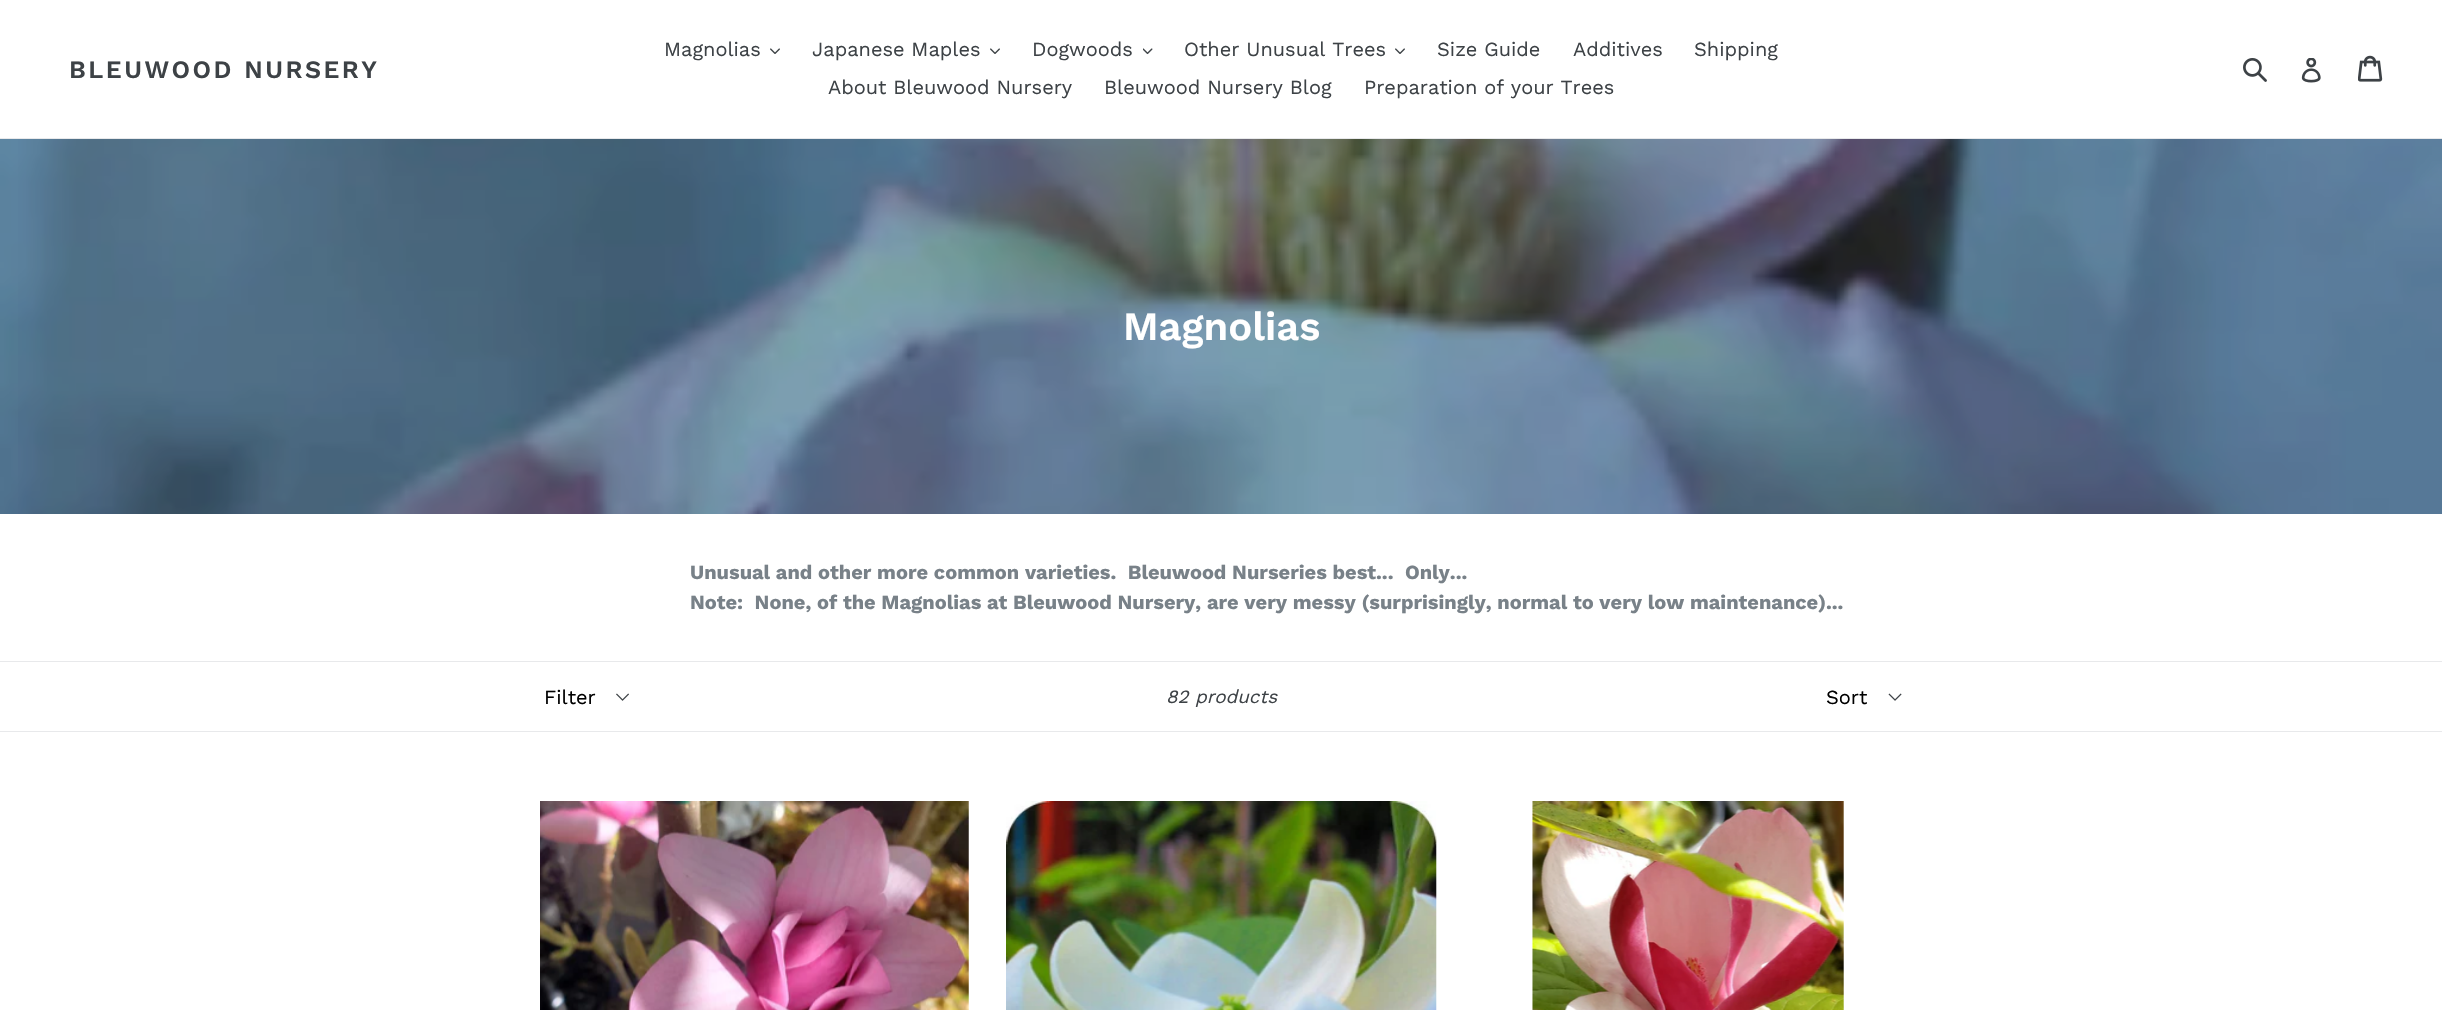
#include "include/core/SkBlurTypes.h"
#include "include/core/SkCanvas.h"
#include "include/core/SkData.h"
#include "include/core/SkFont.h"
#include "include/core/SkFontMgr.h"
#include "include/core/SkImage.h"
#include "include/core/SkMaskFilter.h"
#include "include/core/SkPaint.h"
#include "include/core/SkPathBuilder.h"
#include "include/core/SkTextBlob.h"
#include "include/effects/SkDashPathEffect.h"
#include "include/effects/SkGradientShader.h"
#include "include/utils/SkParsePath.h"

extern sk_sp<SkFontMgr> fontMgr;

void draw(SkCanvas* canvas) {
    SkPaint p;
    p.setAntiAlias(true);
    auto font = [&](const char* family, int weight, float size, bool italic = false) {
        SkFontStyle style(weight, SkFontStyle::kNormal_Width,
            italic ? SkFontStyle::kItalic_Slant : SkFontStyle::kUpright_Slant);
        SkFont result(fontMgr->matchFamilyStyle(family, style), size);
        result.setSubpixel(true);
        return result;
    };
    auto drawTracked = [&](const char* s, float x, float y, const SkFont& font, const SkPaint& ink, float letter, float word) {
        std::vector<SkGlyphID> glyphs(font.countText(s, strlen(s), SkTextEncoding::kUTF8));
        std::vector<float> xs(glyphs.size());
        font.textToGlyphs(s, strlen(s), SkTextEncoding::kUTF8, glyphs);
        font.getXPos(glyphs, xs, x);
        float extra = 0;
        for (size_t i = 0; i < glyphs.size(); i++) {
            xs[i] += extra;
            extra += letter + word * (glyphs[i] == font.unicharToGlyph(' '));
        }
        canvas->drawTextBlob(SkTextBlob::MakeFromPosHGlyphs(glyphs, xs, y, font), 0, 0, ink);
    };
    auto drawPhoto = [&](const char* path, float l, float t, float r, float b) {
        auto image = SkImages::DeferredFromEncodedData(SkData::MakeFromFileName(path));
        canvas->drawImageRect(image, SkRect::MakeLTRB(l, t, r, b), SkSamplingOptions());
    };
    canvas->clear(0xFFFFFFFF);
    p.setColor(0xFFE8E9EB);
    canvas->drawRect(SkRect::MakeLTRB(0, 138, 2442, 139), p);
    auto font1 = font("Work Sans", 600, 25);
    p.setColor(0xFF3D4246);
    drawTracked("BLEUWOOD NURSERY", 69, 78, font1, p, 2.5f, 0);
    auto font2 = font("Work Sans", 400, 20);
    canvas->drawString("Magnolias", 664, 56, font2, p);
    drawPhoto("media/1.png", 770, 48, 780, 54);
    canvas->drawString("Japanese Maples", 812, 56, font2, p);
    drawPhoto("media/1.png", 990, 48, 1000, 54);
    canvas->drawString("Dogwoods", 1032, 56, font2, p);
    drawPhoto("media/2.png", 1143, 48, 1153, 55);
    canvas->drawString("Other Unusual Trees", 1184, 56, font2, p);
    drawPhoto("media/1.png", 1395, 48, 1405, 54);
    {
        const struct { const char* s; float x, y; } items[] = {
            {"Size Guide", 1437, 56},
            {"Additives", 1573, 56},
            {"Shipping", 1694, 56},
            {"About Bleuwood Nursery", 828, 94},
            {"Bleuwood Nursery Blog", 1104, 94},
            {"Preparation of your Trees", 1364, 94},
        };
        for (auto [s, x, y] : items) {
            canvas->drawString(s, x, y, font2, p);
        }
    }
    drawPhoto("media/3.png", 2243, 58, 2267, 82);
    drawPhoto("media/4.png", 2301, 58, 2321, 83);
    drawPhoto("media/5.png", 2358, 55, 2383, 82);
    drawPhoto("media/6.png", 0, 139, 2442, 514);
    auto font3 = font("Work Sans", 600, 40);
    p.setColor(0xFFFFFFFF);
    canvas->drawString("Magnolias", 1123, 340, font3, p);
    auto font4 = font("Work Sans", 700, 20);
    p.setColor(0xFF788188);
    canvas->drawString("Unusual and other more common varieties.  Bleuwood Nurseries best...  Only...", 690, 579, font4, p);
    canvas->drawString("Note:  None, of the Magnolias at Bleuwood Nursery, are very messy (surprisingly, normal to very low maintenance)...", 690, 609, font4, p);
    p.setColor(0xFFE8E9EB);
    canvas->drawRect(SkRect::MakeLTRB(0, 661, 2442, 662), p);
    canvas->drawRect(SkRect::MakeLTRB(0, 731, 2442, 732), p);
    drawPhoto("media/7.png", 616, 693, 629, 701);
    p.setColor(0xFF000000);
    canvas->drawString("Filter", 544, 704, font2, p);
    auto font5 = font("Work Sans", 400, 18.75f, true);
    p.setColor(0xFF3D4246);
    canvas->drawString("82 products", 1166, 703, font5, p);
    drawPhoto("media/8.png", 1888, 693, 1902, 701);
    p.setColor(0xFF000000);
    canvas->drawString("Sort", 1826, 704, font2, p);
    drawPhoto("media/9.png", 540, 801, 969, 1010);
    drawPhoto("media/10.png", 1006, 801, 1437, 1010);
    drawPhoto("media/11.png", 1532, 801, 1844, 1010);
}
